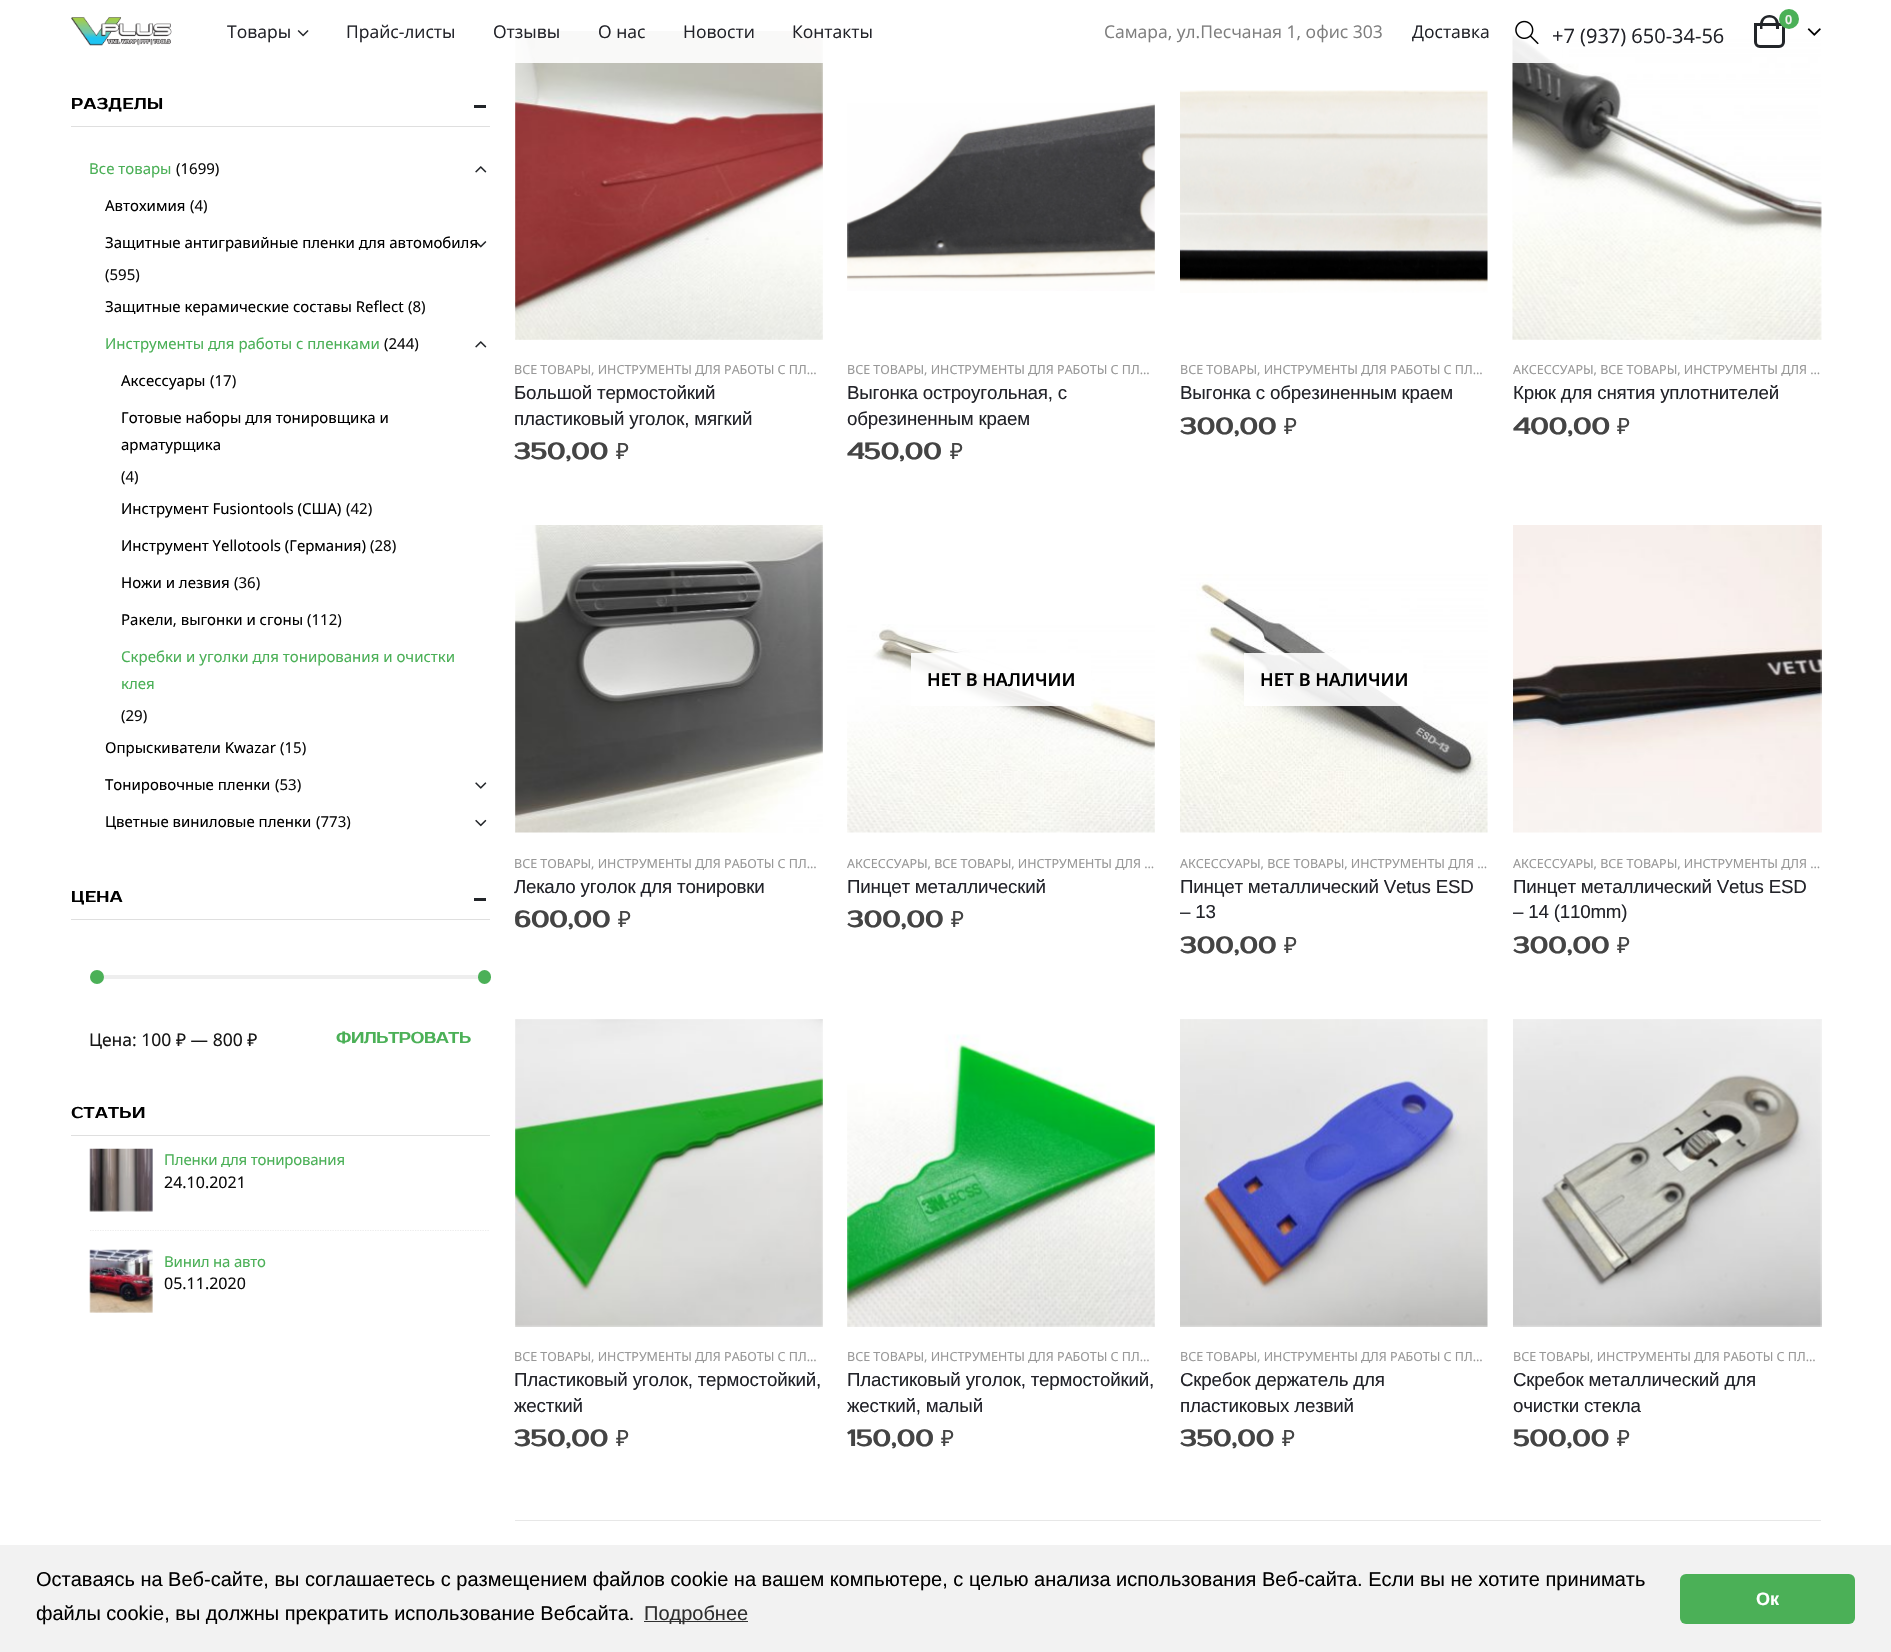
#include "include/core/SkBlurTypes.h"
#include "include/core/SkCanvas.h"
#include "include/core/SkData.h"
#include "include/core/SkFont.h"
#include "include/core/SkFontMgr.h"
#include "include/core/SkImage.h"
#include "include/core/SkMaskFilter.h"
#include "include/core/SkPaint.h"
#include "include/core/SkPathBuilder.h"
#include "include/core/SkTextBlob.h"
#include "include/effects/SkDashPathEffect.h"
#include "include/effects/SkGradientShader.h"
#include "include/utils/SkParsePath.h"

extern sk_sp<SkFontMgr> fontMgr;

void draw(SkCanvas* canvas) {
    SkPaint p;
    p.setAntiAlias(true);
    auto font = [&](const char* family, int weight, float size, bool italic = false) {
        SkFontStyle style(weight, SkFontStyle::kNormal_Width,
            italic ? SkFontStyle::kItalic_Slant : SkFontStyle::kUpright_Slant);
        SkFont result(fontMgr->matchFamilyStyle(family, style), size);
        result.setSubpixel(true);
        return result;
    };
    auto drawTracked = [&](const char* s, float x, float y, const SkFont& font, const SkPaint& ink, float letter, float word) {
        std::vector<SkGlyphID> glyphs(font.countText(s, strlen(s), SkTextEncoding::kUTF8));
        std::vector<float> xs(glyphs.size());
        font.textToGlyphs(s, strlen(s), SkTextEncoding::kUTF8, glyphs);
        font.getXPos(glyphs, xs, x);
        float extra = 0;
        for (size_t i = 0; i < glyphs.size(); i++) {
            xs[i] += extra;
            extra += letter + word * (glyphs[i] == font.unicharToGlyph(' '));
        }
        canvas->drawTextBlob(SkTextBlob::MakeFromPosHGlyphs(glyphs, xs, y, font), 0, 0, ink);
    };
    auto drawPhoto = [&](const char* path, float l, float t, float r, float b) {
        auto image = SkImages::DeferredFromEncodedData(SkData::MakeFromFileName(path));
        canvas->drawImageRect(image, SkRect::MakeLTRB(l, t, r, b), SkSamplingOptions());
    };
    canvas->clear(0xFFFFFFFF);
    drawPhoto("media/11.png", 515, 31, 823, 340);
    drawPhoto("media/14.png", 1512, 34, 1822, 340);
    p.setColor(0xE6FFFFFF);
    canvas->drawRect(SkRect::MakeLTRB(515, 31, 1562, 63), p);
    drawPhoto("media/1.png", 71, 17, 172, 46);
    auto font1 = font("Open Sans", 400, 17.5f);
    p.setColor(0xFF222329);
    canvas->drawString("Товары", 227, 38, font1, p);
    drawPhoto("media/2.png", 297, 30, 309, 37);
    {
        const struct { const char* s; float x, y; } items[] = {
            {"Прайс-листы", 346, 38},
            {"Отзывы", 493, 38},
            {"О нас", 598, 38},
            {"Новости", 683, 38},
            {"Контакты", 792, 38},
        };
        for (auto [s, x, y] : items) {
            canvas->drawString(s, x, y, font1, p);
        }
    }
    p.setColor(0xFF7E7E7E);
    canvas->drawString("Самара, ул.Песчаная 1, офис 303", 1104, 38, font1, p);
    p.setColor(0xFF222329);
    canvas->drawString("Доставка", 1412, 38, font1, p);
    drawPhoto("media/3.png", 1515, 20, 1539, 45);
    auto font2 = font("Open Sans", 400, 20);
    canvas->drawString("+7 (937) 650-34-56", 1552, 43, font2, p);
    p.setStyle(SkPaint::kStroke_Style);
    p.setStrokeWidth(3);
    p.setColor(0xFF222529);
    canvas->drawPath(SkPathBuilder().moveTo(1755.5f, 24.5f).lineTo(1783.5f, 24.5f).lineTo(1783.5f, 42).cubicTo(1783.5f, 44.5f, 1781.5f, 46.5f, 1779, 46.5f).lineTo(1760, 46.5f).cubicTo(1757.5f, 46.5f, 1755.5f, 44.5f, 1755.5f, 42).close().detach(), p);
    p.setStyle(SkPaint::kFill_Style);
    canvas->drawPath(SkPathBuilder(SkPathFillType::kEvenOdd).moveTo(1769.5f, 15).cubicTo(1774.5f, 15, 1779, 19, 1779, 24.5f).lineTo(1779, 29).lineTo(1760, 29).lineTo(1760, 24.5f).cubicTo(1760, 19, 1764, 15, 1769.5f, 15).close().moveTo(1769.5f, 17.5f).cubicTo(1776.5f, 17.5f, 1776, 24, 1776, 29).lineTo(1762.5f, 29).cubicTo(1762.5f, 24, 1762.5f, 17.5f, 1769.5f, 17.5f).close().detach(), p);
    p.setColor(0xFF4BB057);
    canvas->drawCircle(1789, 19, 10, p);
    auto font3 = font("Noto Sans", 600, 12.5f);
    p.setColor(0xFFF2F2F2);
    canvas->drawString("0", 1785, 24, font3, p);
    drawPhoto("media/4.png", 1807, 28, 1821, 36);
    p.setColor(0xFFDFDFDF);
    canvas->drawRect(SkRect::MakeLTRB(71, 126, 490, 127), p);
    auto font4 = font("Prosto One", 700, 15);
    p.setColor(0xFF000000);
    drawTracked("РАЗДЕЛЫ", 71, 109, font4, p, 0.75f, 0);
    p.setColor(0xFF222529);
    canvas->drawRect(SkRect::MakeLTRB(474, 105, 486, 108), p);
    auto font5 = font("Noto Sans", 400, 15);
    p.setColor(0xFF4BB057);
    canvas->drawString("Все товары", 89, 174, font5, p);
    p.setColor(0xFF0D0D0D);
    canvas->drawString("(1699)", 176, 174, font5, p);
    drawPhoto("media/5.png", 475, 166, 487, 173);
    p.setColor(0xFF000000);
    canvas->drawString("Автохимия", 105, 211, font5, p);
    p.setColor(0xFF0D0D0D);
    canvas->drawString("(4)", 190, 211, font5, p);
    p.setColor(0xFF000000);
    canvas->drawString("Защитные антигравийные пленки для автомобиля", 105, 248, font5, p);
    drawPhoto("media/6.png", 475, 241, 487, 248);
    p.setColor(0xFF0D0D0D);
    canvas->drawString("(595)", 105, 280, font5, p);
    p.setColor(0xFF000000);
    canvas->drawString("Защитные керамические составы Reflect", 105, 312, font5, p);
    p.setColor(0xFF0D0D0D);
    canvas->drawString("(8)", 408, 312, font5, p);
    p.setColor(0xFF4BB057);
    canvas->drawString("Инструменты для работы с пленками", 105, 349, font5, p);
    p.setColor(0xFF0D0D0D);
    canvas->drawString("(244)", 384, 349, font5, p);
    drawPhoto("media/5.png", 475, 341, 487, 348);
    p.setColor(0xFF000000);
    canvas->drawString("Аксессуары", 121, 386, font5, p);
    p.setColor(0xFF0D0D0D);
    canvas->drawString("(17)", 210, 386, font5, p);
    p.setColor(0xFF000000);
    canvas->drawString("Готовые наборы для тонировщика и", 121, 423, font5, p);
    canvas->drawString("арматурщика", 121, 450, font5, p);
    p.setColor(0xFF0D0D0D);
    canvas->drawString("(4)", 121, 482, font5, p);
    p.setColor(0xFF000000);
    canvas->drawString("Инструмент Fusiontools (США)", 121, 514, font5, p);
    p.setColor(0xFF0D0D0D);
    canvas->drawString("(42)", 346, 514, font5, p);
    p.setColor(0xFF000000);
    canvas->drawString("Инструмент Yellotools (Германия)", 121, 551, font5, p);
    p.setColor(0xFF0D0D0D);
    canvas->drawString("(28)", 370, 551, font5, p);
    p.setColor(0xFF000000);
    canvas->drawString("Ножи и лезвия", 121, 588, font5, p);
    p.setColor(0xFF0D0D0D);
    canvas->drawString("(36)", 234, 588, font5, p);
    p.setColor(0xFF000000);
    canvas->drawString("Ракели, выгонки и сгоны", 121, 625, font5, p);
    p.setColor(0xFF0D0D0D);
    canvas->drawString("(112)", 307, 625, font5, p);
    p.setColor(0xFF4BB057);
    canvas->drawString("Скребки и уголки для тонирования и очистки", 121, 662, font5, p);
    canvas->drawString("клея", 121, 689, font5, p);
    p.setColor(0xFF0D0D0D);
    canvas->drawString("(29)", 121, 721, font5, p);
    p.setColor(0xFF000000);
    canvas->drawString("Опрыскиватели Kwazar", 105, 753, font5, p);
    p.setColor(0xFF0D0D0D);
    canvas->drawString("(15)", 280, 753, font5, p);
    p.setColor(0xFF000000);
    canvas->drawString("Тонировочные пленки", 105, 790, font5, p);
    p.setColor(0xFF0D0D0D);
    canvas->drawString("(53)", 275, 790, font5, p);
    drawPhoto("media/7.png", 475, 782, 487, 789);
    p.setColor(0xFF000000);
    canvas->drawString("Цветные виниловые пленки", 105, 827, font5, p);
    p.setColor(0xFF0D0D0D);
    canvas->drawString("(773)", 316, 827, font5, p);
    drawPhoto("media/8.png", 475, 819, 487, 827);
    p.setColor(0xFFDFDFDF);
    canvas->drawRect(SkRect::MakeLTRB(71, 919, 490, 920), p);
    p.setColor(0xFF000000);
    drawTracked("ЦЕНА", 71, 902, font4, p, 0.75f, 0);
    p.setColor(0xFF222529);
    canvas->drawRect(SkRect::MakeLTRB(474, 898, 486, 901), p);
    p.setColor(0xFFEEEEEE);
    canvas->drawRect(SkRect::MakeLTRB(90, 975, 479, 979), p);
    p.setColor(0xFF4BB057);
    canvas->drawCircle(97, 977, 7, p);
    canvas->drawRoundRect(SkRect::MakeLTRB(478, 970, 491, 984), 6.5f, 6.5f, p);
    auto font6 = font("Noto Sans", 400, 17.5f);
    p.setColor(0xFF171717);
    canvas->drawString("Цена: 100 ₽ — 800 ₽", 89, 1046, font6, p);
    p.setColor(0xFF4BB057);
    canvas->drawString("ФИЛЬТРОВАТЬ", 336, 1043, font4, p);
    p.setColor(0xFFDFDFDF);
    canvas->drawRect(SkRect::MakeLTRB(71, 1135, 490, 1136), p);
    p.setColor(0xFF000000);
    drawTracked("СТАТЬИ", 71, 1118, font4, p, 0.75f, 0);
    drawPhoto("media/9.png", 89, 1148, 153, 1212);
    p.setColor(0xFF4BB057);
    drawTracked("Пленки для тонирования", 164, 1165, font5, p, -0.2f, 0);
    auto font7 = font("Noto Sans", 400, 16);
    p.setColor(0xFF0D0D0D);
    canvas->drawString("24.10.2021", 164, 1188, font7, p);
    p.setStyle(SkPaint::kStroke_Style);
    p.setStrokeWidth(1.2f);
    p.setColor(0xFFECECEC);
    p.setPathEffect(SkDashPathEffect::Make({{1.25f, 1.25f}}, 0));
    canvas->drawPath(SkPathBuilder().moveTo(90, 1230.5f).lineTo(490, 1230.5f).detach(), p);
    p.setPathEffect(nullptr);
    drawPhoto("media/10.png", 89, 1249, 153, 1313);
    p.setStyle(SkPaint::kFill_Style);
    p.setColor(0xFF4BB057);
    drawTracked("Винил на авто", 164, 1267, font5, p, -0.2f, 0);
    p.setColor(0xFF0D0D0D);
    canvas->drawString("05.11.2020", 164, 1289, font7, p);
    auto font8 = font("Noto Sans", 400, 12.5f);
    p.setColor(0xFF989898);
    canvas->drawString("ВСЕ ТОВАРЫ, ИНСТРУМЕНТЫ ДЛЯ РАБОТЫ С ПЛ…", 514, 374, font8, p);
    auto font9 = font("Liberation Sans", 400, 18.75f);
    p.setColor(0xFF222329);
    drawTracked("Большой термостойкий", 514, 399, font9, p, -0.2f, 0);
    drawTracked("пластиковый уголок, мягкий", 514, 425, font9, p, -0.2f, 0);
    auto font10 = font("Prosto One", 700, 22.5f);
    p.setColor(0xFF444444);
    canvas->drawString("350,00", 514, 459, font10, p);
    auto font11 = font("Noto Sans", 400, 22.5f);
    canvas->drawString("₽", 616, 459, font11, p);
    drawPhoto("media/12.png", 847, 103, 1155, 291);
    p.setColor(0xFF989898);
    canvas->drawString("ВСЕ ТОВАРЫ, ИНСТРУМЕНТЫ ДЛЯ РАБОТЫ С ПЛ…", 847, 374, font8, p);
    p.setColor(0xFF222329);
    drawTracked("Выгонка остроугольная, с", 847, 399, font9, p, -0.2f, 0);
    drawTracked("обрезиненным краем", 847, 425, font9, p, -0.2f, 0);
    p.setColor(0xFF444444);
    canvas->drawString("450,00", 847, 459, font10, p);
    canvas->drawString("₽", 950, 459, font11, p);
    drawPhoto("media/13.png", 1180, 90, 1488, 293);
    p.setColor(0xFF989898);
    canvas->drawString("ВСЕ ТОВАРЫ, ИНСТРУМЕНТЫ ДЛЯ РАБОТЫ С ПЛ…", 1180, 374, font8, p);
    p.setColor(0xFF222329);
    drawTracked("Выгонка с обрезиненным краем", 1180, 399, font9, p, -0.2f, 0);
    p.setColor(0xFF444444);
    canvas->drawString("300,00", 1180, 434, font10, p);
    canvas->drawString("₽", 1284, 434, font11, p);
    p.setColor(0xFF989898);
    canvas->drawString("АКСЕССУАРЫ, ВСЕ ТОВАРЫ, ИНСТРУМЕНТЫ ДЛЯ …", 1513, 374, font8, p);
    p.setColor(0xFF222329);
    drawTracked("Крюк для снятия уплотнителей", 1513, 399, font9, p, -0.2f, 0);
    p.setColor(0xFF444444);
    canvas->drawString("400,00", 1513, 434, font10, p);
    canvas->drawString("₽", 1617, 434, font11, p);
    drawPhoto("media/15.png", 515, 525, 823, 833);
    p.setColor(0xFF989898);
    canvas->drawString("ВСЕ ТОВАРЫ, ИНСТРУМЕНТЫ ДЛЯ РАБОТЫ С ПЛ…", 514, 868, font8, p);
    p.setColor(0xFF222329);
    drawTracked("Лекало уголок для тонировки", 514, 893, font9, p, -0.2f, 0);
    p.setColor(0xFF444444);
    canvas->drawString("600,00", 514, 927, font10, p);
    canvas->drawString("₽", 618, 927, font11, p);
    drawPhoto("media/16.png", 847, 624, 1155, 833);
    p.setColor(0xE6FFFFFF);
    canvas->drawRect(SkRect::MakeLTRB(911, 653, 1091, 706), p);
    auto font12 = font("Noto Sans", 600, 18);
    p.setColor(0xFF000000);
    canvas->drawString("НЕТ В НАЛИЧИИ", 927, 686, font12, p);
    p.setColor(0xFF989898);
    canvas->drawString("АКСЕССУАРЫ, ВСЕ ТОВАРЫ, ИНСТРУМЕНТЫ ДЛЯ …", 847, 868, font8, p);
    p.setColor(0xFF222329);
    drawTracked("Пинцет металлический", 847, 893, font9, p, -0.2f, 0);
    p.setColor(0xFF444444);
    canvas->drawString("300,00", 847, 927, font10, p);
    canvas->drawString("₽", 951, 927, font11, p);
    drawPhoto("media/17.png", 1180, 574, 1488, 833);
    p.setColor(0xE6FFFFFF);
    canvas->drawRect(SkRect::MakeLTRB(1244, 653, 1423, 706), p);
    p.setColor(0xFF000000);
    canvas->drawString("НЕТ В НАЛИЧИИ", 1260, 686, font12, p);
    p.setColor(0xFF989898);
    canvas->drawString("АКСЕССУАРЫ, ВСЕ ТОВАРЫ, ИНСТРУМЕНТЫ ДЛЯ …", 1180, 868, font8, p);
    p.setColor(0xFF222329);
    drawTracked("Пинцет металлический Vetus ESD", 1180, 893, font9, p, -0.2f, 0);
    drawTracked("– 13", 1180, 918, font9, p, -0.2f, 0);
    p.setColor(0xFF444444);
    canvas->drawString("300,00", 1180, 953, font10, p);
    canvas->drawString("₽", 1284, 953, font11, p);
    drawPhoto("media/18.png", 1513, 525, 1822, 833);
    p.setColor(0xFF989898);
    canvas->drawString("АКСЕССУАРЫ, ВСЕ ТОВАРЫ, ИНСТРУМЕНТЫ ДЛЯ …", 1513, 868, font8, p);
    p.setColor(0xFF222329);
    drawTracked("Пинцет металлический Vetus ESD", 1513, 893, font9, p, -0.2f, 0);
    drawTracked("– 14 (110mm)", 1513, 918, font9, p, -0.2f, 0);
    p.setColor(0xFF444444);
    canvas->drawString("300,00", 1513, 953, font10, p);
    canvas->drawString("₽", 1617, 953, font11, p);
    drawPhoto("media/19.png", 515, 1019, 823, 1327);
    p.setColor(0xFF989898);
    canvas->drawString("ВСЕ ТОВАРЫ, ИНСТРУМЕНТЫ ДЛЯ РАБОТЫ С ПЛ…", 514, 1361, font8, p);
    p.setColor(0xFF222329);
    drawTracked("Пластиковый уголок, термостойкий,", 514, 1386, font9, p, -0.2f, 0);
    drawTracked("жесткий", 514, 1412, font9, p, -0.2f, 0);
    p.setColor(0xFF444444);
    canvas->drawString("350,00", 514, 1446, font10, p);
    canvas->drawString("₽", 616, 1446, font11, p);
    drawPhoto("media/20.png", 847, 1034, 1155, 1327);
    p.setColor(0xFF989898);
    canvas->drawString("ВСЕ ТОВАРЫ, ИНСТРУМЕНТЫ ДЛЯ РАБОТЫ С ПЛ…", 847, 1361, font8, p);
    p.setColor(0xFF222329);
    drawTracked("Пластиковый уголок, термостойкий,", 847, 1386, font9, p, -0.2f, 0);
    drawTracked("жесткий, малый", 847, 1412, font9, p, -0.2f, 0);
    p.setColor(0xFF444444);
    canvas->drawString("150,00", 847, 1446, font10, p);
    canvas->drawString("₽", 941, 1446, font11, p);
    drawPhoto("media/21.png", 1180, 1019, 1488, 1327);
    p.setColor(0xFF989898);
    canvas->drawString("ВСЕ ТОВАРЫ, ИНСТРУМЕНТЫ ДЛЯ РАБОТЫ С ПЛ…", 1180, 1361, font8, p);
    p.setColor(0xFF222329);
    drawTracked("Скребок держатель для", 1180, 1386, font9, p, -0.2f, 0);
    drawTracked("пластиковых лезвий", 1180, 1412, font9, p, -0.2f, 0);
    p.setColor(0xFF444444);
    canvas->drawString("350,00", 1180, 1446, font10, p);
    canvas->drawString("₽", 1282, 1446, font11, p);
    drawPhoto("media/22.png", 1513, 1019, 1822, 1327);
    p.setColor(0xFF989898);
    canvas->drawString("ВСЕ ТОВАРЫ, ИНСТРУМЕНТЫ ДЛЯ РАБОТЫ С ПЛ…", 1513, 1361, font8, p);
    p.setColor(0xFF222329);
    drawTracked("Скребок металлический для", 1513, 1386, font9, p, -0.2f, 0);
    drawTracked("очистки стекла", 1513, 1412, font9, p, -0.2f, 0);
    p.setColor(0xFF444444);
    canvas->drawString("500,00", 1513, 1446, font10, p);
    canvas->drawString("₽", 1617, 1446, font11, p);
    p.setColor(0xFFE7E7E7);
    canvas->drawRect(SkRect::MakeLTRB(515, 1520, 1821, 1521), p);
    p.setColor(0xFFF2F2F2);
    canvas->drawRect(SkRect::MakeLTRB(0, 1545, 1891, 1652), p);
    auto font13 = font("Liberation Sans", 400, 20);
    p.setColor(0xFF000000);
    canvas->drawString("Оставаясь на Веб-сайте, вы соглашаетесь с размещением файлов cookie на вашем компьютере, с целью анализа использования Веб-сайта. Если вы не хотите принимать", 36, 1586, font13, p);
    canvas->drawString("файлы cookie, вы должны прекратить использование Вебсайта.", 36, 1620, font13, p);
    p.setColor(0xFF303030);
    canvas->drawRect(SkRect::MakeLTRB(644, 1621, 748, 1622), p);
    canvas->drawString("Подробнее", 644, 1620, font13, p);
    p.setColor(0xFF4BB057);
    canvas->drawRoundRect(SkRect::MakeLTRB(1680, 1574, 1855, 1624), 6, 6, p);
    auto font14 = font("Liberation Sans", 700, 18);
    p.setColor(0xFFFFFFFF);
    canvas->drawString("Ок", 1756, 1605, font14, p);
}
